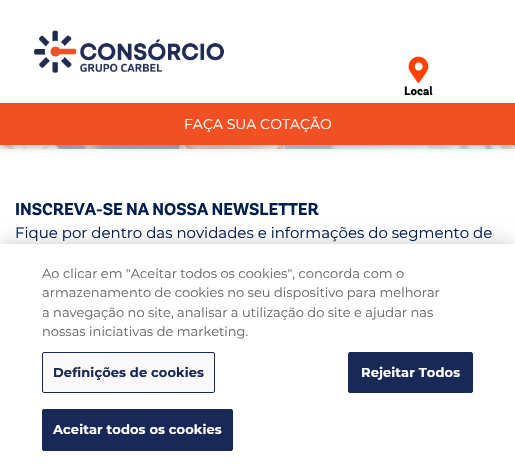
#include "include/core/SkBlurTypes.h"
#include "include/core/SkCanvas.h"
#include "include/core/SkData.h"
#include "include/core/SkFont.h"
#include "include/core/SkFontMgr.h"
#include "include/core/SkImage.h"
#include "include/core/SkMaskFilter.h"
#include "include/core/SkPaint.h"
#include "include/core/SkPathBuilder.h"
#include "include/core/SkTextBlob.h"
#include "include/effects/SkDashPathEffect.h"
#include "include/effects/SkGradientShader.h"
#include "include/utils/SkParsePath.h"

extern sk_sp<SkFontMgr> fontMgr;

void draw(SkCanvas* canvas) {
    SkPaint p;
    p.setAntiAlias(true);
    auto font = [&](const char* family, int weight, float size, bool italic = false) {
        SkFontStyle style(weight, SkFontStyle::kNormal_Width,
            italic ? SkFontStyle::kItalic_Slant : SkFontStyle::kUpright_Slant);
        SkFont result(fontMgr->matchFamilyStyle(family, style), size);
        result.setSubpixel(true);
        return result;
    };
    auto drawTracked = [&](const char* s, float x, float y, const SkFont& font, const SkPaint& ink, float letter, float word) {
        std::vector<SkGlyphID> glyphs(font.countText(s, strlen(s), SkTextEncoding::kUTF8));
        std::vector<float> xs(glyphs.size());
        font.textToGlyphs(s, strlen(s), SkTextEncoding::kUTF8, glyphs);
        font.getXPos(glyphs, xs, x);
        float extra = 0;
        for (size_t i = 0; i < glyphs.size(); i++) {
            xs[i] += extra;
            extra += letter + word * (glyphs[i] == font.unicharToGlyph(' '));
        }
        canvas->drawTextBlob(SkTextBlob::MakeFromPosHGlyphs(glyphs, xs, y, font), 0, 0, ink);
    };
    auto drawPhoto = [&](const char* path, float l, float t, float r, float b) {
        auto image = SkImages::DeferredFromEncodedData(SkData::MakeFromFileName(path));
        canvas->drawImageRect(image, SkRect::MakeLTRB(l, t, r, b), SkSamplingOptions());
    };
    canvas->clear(0xFFFFFFFF);
    drawPhoto("media/3.png", 0, 145, 515, 149);
    p.setColor(0x29000000);
    p.setMaskFilter(SkMaskFilter::MakeBlur(kNormal_SkBlurStyle, 3));
    canvas->drawRect(SkRect::MakeLTRB(0, 3, 515, 148), p);
    p.setMaskFilter(nullptr);
    p.setColor(0xFFFFFFFF);
    canvas->drawRect(SkRect::MakeLTRB(0, 0, 515, 103), p);
    drawPhoto("media/1.png", 34, 30, 224, 73);
    drawPhoto("media/2.png", 408, 56, 429, 83);
    auto font1 = font("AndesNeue", 700, 12);
    p.setColor(0xFF000000);
    canvas->drawString("Local", 404, 95, font1, p);
    p.setColor(0xFFF05022);
    canvas->drawRect(SkRect::MakeLTRB(0, 103, 515, 145), p);
    auto font2 = font("Montserrat", 400, 14);
    p.setColor(0xFFFFFFFF);
    canvas->drawString("FAÇA SUA COTAÇÃO", 184, 129, font2, p);
    auto font3 = font("AndesNeue", 700, 17);
    p.setColor(0xFF001E50);
    canvas->drawString("INSCREVA-SE NA NOSSA NEWSLETTER", 15, 215, font3, p);
    auto font4 = font("Montserrat", 400, 15);
    canvas->drawString("Fique por dentro das novidades e informações do segmento de", 15, 238, font4, p);
    p.setColor(0x33000000);
    p.setMaskFilter(SkMaskFilter::MakeBlur(kNormal_SkBlurStyle, 9));
    canvas->drawRect(SkRect::MakeLTRB(0, 244, 515, 467), p);
    p.setMaskFilter(nullptr);
    p.setColor(0xFFFFFFFF);
    canvas->drawRect(SkRect::MakeLTRB(0, 244, 515, 467), p);
    auto font5 = font("Montserrat", 400, 13);
    p.setColor(0xFF696969);
    {
        const struct { const char* s; float x, y; } items[] = {
            {"Ao clicar em \"Aceitar todos os cookies\", concorda com o", 42, 278},
            {"armazenamento de cookies no seu dispositivo para melhorar", 42, 297},
            {"a navegação no site, analisar a utilização do site e ajudar nas", 42, 317},
            {"nossas iniciativas de marketing.", 42, 336},
        };
        for (auto [s, x, y] : items) {
            canvas->drawString(s, x, y, font5, p);
        }
    }
    p.setColor(0xFFFAF9F9);
    canvas->drawRoundRect(SkRect::MakeLTRB(42.5f, 352.5f, 214.5f, 392.5f), 1.5f, 1.5f, p);
    p.setStyle(SkPaint::kStroke_Style);
    p.setStrokeWidth(1);
    p.setColor(0xFF182857);
    canvas->drawRoundRect(SkRect::MakeLTRB(42.5f, 352.5f, 214.5f, 392.5f), 1.5f, 1.5f, p);
    auto font6 = font("Montserrat", 700, 13);
    p.setStyle(SkPaint::kFill_Style);
    drawTracked("Definições de cookies", 53, 377, font6, p, 0.1f, 0);
    canvas->drawRoundRect(SkRect::MakeLTRB(348.5f, 352.5f, 472.5f, 392.5f), 1.5f, 1.5f, p);
    p.setStyle(SkPaint::kStroke_Style);
    canvas->drawRoundRect(SkRect::MakeLTRB(348.5f, 352.5f, 472.5f, 392.5f), 1.5f, 1.5f, p);
    p.setStyle(SkPaint::kFill_Style);
    p.setColor(0xFFFFFFFF);
    drawTracked("Rejeitar Todos", 361, 377, font6, p, 0.1f, 0);
    p.setColor(0xFF182857);
    canvas->drawRoundRect(SkRect::MakeLTRB(42.5f, 409.5f, 232.5f, 450.5f), 1.5f, 1.5f, p);
    p.setStyle(SkPaint::kStroke_Style);
    canvas->drawRoundRect(SkRect::MakeLTRB(42.5f, 409.5f, 232.5f, 450.5f), 1.5f, 1.5f, p);
    p.setStyle(SkPaint::kFill_Style);
    p.setColor(0xFFFFFFFF);
    drawTracked("Aceitar todos os cookies", 53, 434, font6, p, 0.1f, 0);
}
